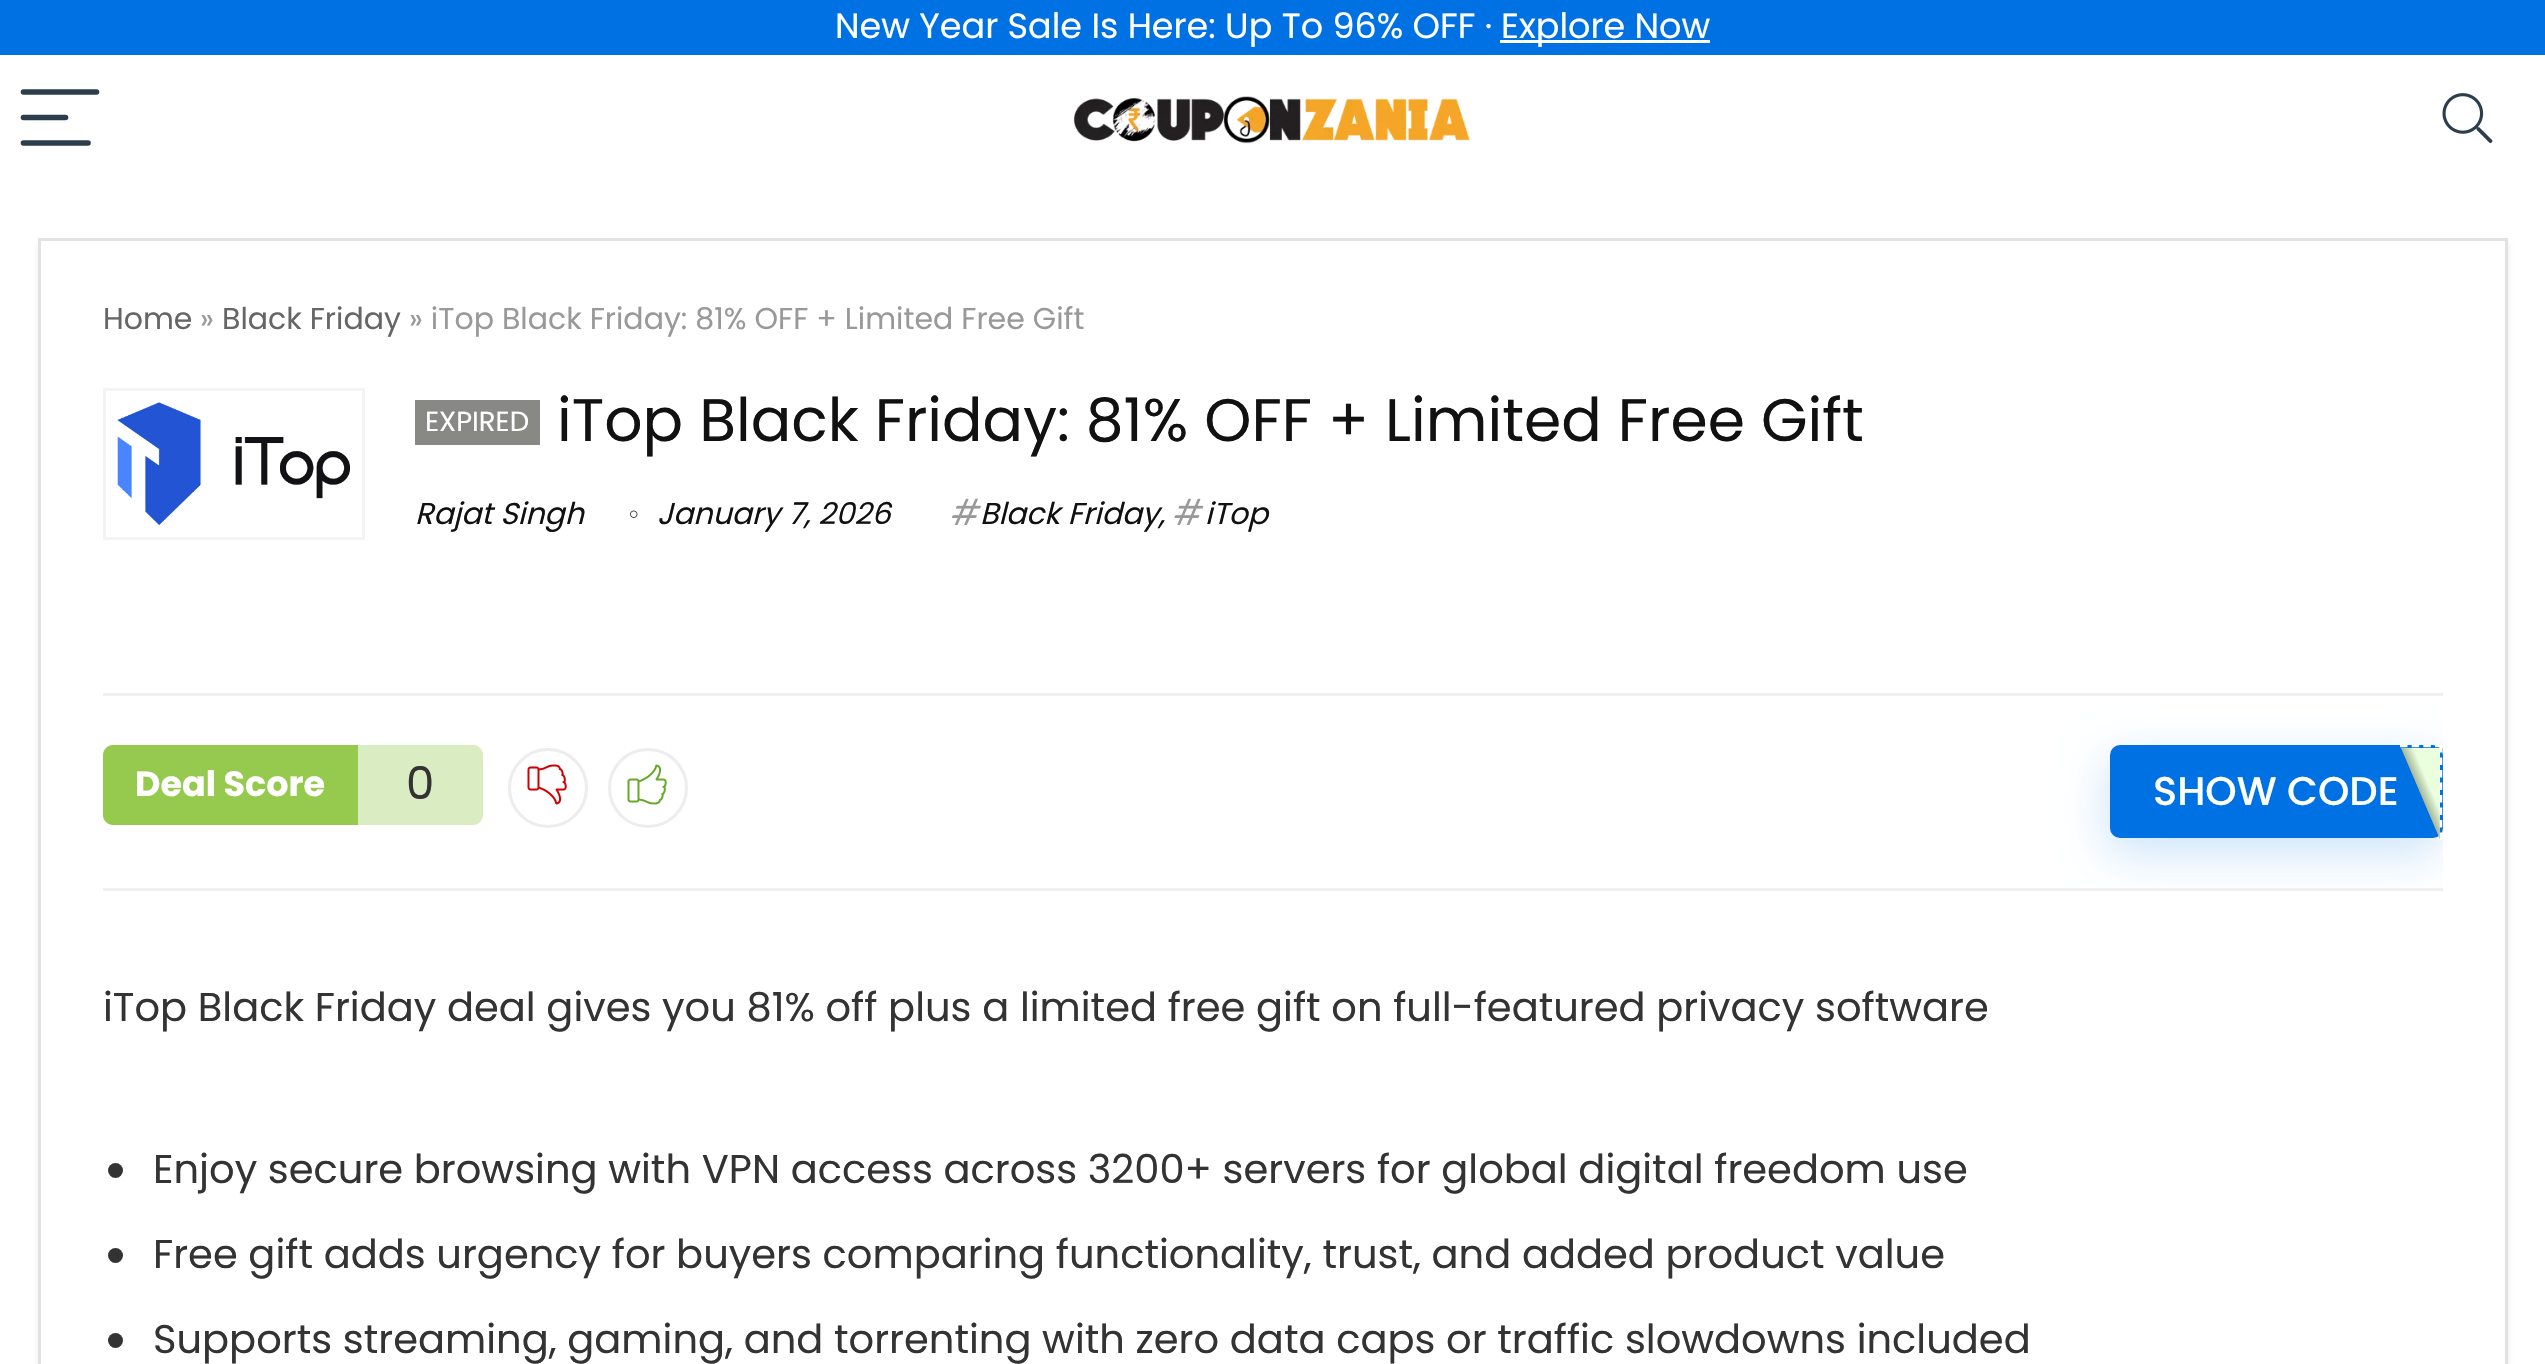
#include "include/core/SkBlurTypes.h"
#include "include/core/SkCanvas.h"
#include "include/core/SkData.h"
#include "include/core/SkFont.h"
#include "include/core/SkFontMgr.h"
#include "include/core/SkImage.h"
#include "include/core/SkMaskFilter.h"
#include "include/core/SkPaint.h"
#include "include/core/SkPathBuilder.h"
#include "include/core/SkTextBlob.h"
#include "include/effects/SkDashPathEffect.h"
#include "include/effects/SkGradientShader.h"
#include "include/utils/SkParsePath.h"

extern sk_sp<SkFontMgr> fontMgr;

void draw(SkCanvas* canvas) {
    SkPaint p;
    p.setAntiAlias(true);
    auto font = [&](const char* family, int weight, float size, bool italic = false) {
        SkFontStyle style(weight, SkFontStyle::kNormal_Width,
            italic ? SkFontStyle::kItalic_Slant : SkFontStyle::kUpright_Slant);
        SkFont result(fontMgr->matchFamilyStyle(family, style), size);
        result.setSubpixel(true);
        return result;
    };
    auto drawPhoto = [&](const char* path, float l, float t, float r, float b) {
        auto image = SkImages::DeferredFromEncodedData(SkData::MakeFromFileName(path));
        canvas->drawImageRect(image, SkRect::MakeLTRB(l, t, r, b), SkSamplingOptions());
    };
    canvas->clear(0xFFFFFFFF);
    p.setColor(0xFF0071E3);
    canvas->drawRect(SkRect::MakeLTRB(0, 0, 2545, 55), p);
    auto font1 = font("Poppins", 400, 35);
    p.setColor(0xFFFFFFFF);
    canvas->drawString("New Year Sale Is Here: Up To 96% OFF ·", 835, 38, font1, p);
    canvas->drawRect(SkRect::MakeLTRB(1500, 40, 1710, 43), p);
    canvas->drawString("Explore Now", 1501, 38, font1, p);
    p.setStyle(SkPaint::kStroke_Style);
    p.setStrokeWidth(5.6f);
    p.setStrokeCap(SkPaint::kRound_Cap);
    p.setColor(0xFF2C3E4E);
    canvas->drawPath(SkPathBuilder().moveTo(23.5f, 92).lineTo(96.5f, 92).detach(), p);
    canvas->drawPath(SkPathBuilder().moveTo(23.5f, 117.5f).lineTo(65.5f, 117.5f).detach(), p);
    canvas->drawPath(SkPathBuilder().moveTo(23.5f, 143).lineTo(88, 143).detach(), p);
    drawPhoto("media/1.png", 1073, 96, 1470, 144);
    drawPhoto("media/2.png", 2442, 93, 2493, 144);
    p.setStyle(SkPaint::kFill_Style);
    p.setColor(0xFFECECEC);
    p.setMaskFilter(SkMaskFilter::MakeBlur(kNormal_SkBlurStyle, 2.5f));
    canvas->drawRect(SkRect::MakeLTRB(38, 243, 2508, 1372), p);
    p.setMaskFilter(nullptr);
    p.setColor(0xFFFFFFFF);
    canvas->drawRect(SkRect::MakeLTRB(39.5f, 239.5f, 2506.5f, 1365.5f), p);
    p.setStyle(SkPaint::kStroke_Style);
    p.setStrokeWidth(3);
    p.setStrokeCap(SkPaint::kButt_Cap);
    p.setColor(0xFFE3E3E3);
    canvas->drawRect(SkRect::MakeLTRB(39.5f, 239.5f, 2506.5f, 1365.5f), p);
    auto font2 = font("Poppins", 400, 30);
    p.setStyle(SkPaint::kFill_Style);
    p.setColor(0xFF666666);
    canvas->drawString("Home", 103, 329, font2, p);
    p.setColor(0xFF999999);
    canvas->drawString("»", 200, 329, font2, p);
    p.setColor(0xFF666666);
    canvas->drawString("Black Friday", 222, 329, font2, p);
    p.setColor(0xFF999999);
    canvas->drawString("» iTop Black Friday: 81% OFF + Limited Free Gift", 409, 329, font2, p);
    p.setStyle(SkPaint::kStroke_Style);
    p.setColor(0xFFF4F4F4);
    canvas->drawRect(SkRect::MakeLTRB(104.5f, 389.5f, 363.5f, 538.5f), p);
    drawPhoto("media/3.png", 117, 402, 350, 525);
    p.setStyle(SkPaint::kFill_Style);
    p.setColor(0xFF888885);
    canvas->drawRect(SkRect::MakeLTRB(415, 400, 540, 445), p);
    auto font3 = font("Poppins", 400, 27.5f);
    p.setColor(0xFFFFFFFF);
    canvas->drawString("EXPIRED", 425, 431, font3, p);
    auto font4 = font("Poppins", 400, 60);
    p.setColor(0xFF111111);
    canvas->drawString("iTop Black Friday: 81% OFF + Limited Free Gift", 557, 441, font4, p);
    auto font5 = font("Poppins", 400, 30, true);
    canvas->drawString("Rajat Singh", 415, 524, font5, p);
    drawPhoto("media/4.png", 630, 510, 638, 518);
    canvas->drawString("January 7, 2026", 657, 524, font5, p);
    drawPhoto("media/5.png", 952, 498, 981, 525);
    canvas->drawString("Black Friday,", 980, 524, font5, p);
    drawPhoto("media/6.png", 1174, 498, 1204, 525);
    canvas->drawString("iTop", 1205, 524, font5, p);
    p.setColor(0xFFF0F0F0);
    canvas->drawRect(SkRect::MakeLTRB(103, 693, 2443, 696), p);
    canvas->drawRect(SkRect::MakeLTRB(103, 888, 2443, 891), p);
    p.setColor(0xFF96CA4E);
    canvas->drawPath(SkPathBuilder().moveTo(113, 745).lineTo(358, 745).lineTo(358, 825).lineTo(113, 825).cubicTo(107.5f, 825, 103, 820.5f, 103, 815).lineTo(103, 755).cubicTo(103, 749.5f, 107.5f, 745, 113, 745).close().detach(), p);
    auto font6 = font("Poppins", 700, 35);
    p.setColor(0xFFFFFFFF);
    canvas->drawString("Deal Score", 135, 796, font6, p);
    p.setColor(0xFFDAECC2);
    canvas->drawPath(SkPathBuilder().moveTo(358, 745).lineTo(473, 745).cubicTo(478.5f, 745, 483, 749.5f, 483, 755).lineTo(483, 815).cubicTo(483, 820.5f, 478.5f, 825, 473, 825).lineTo(358, 825).close().detach(), p);
    auto font7 = font("Poppins", 400, 45);
    p.setColor(0xFF333333);
    canvas->drawString("0", 406, 799, font7, p);
    p.setStyle(SkPaint::kStroke_Style);
    p.setColor(0xFFEDEDED);
    canvas->drawCircle(548, 788, 38.5f, p);
    drawPhoto("media/7.png", 527, 764, 567, 805);
    canvas->drawCircle(648, 788, 38.5f, p);
    drawPhoto("media/8.png", 627, 764, 667, 805);
    canvas->save();
    canvas->clipRect(SkRect::MakeLTRB(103, 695, 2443, 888));
    p.setStyle(SkPaint::kFill_Style);
    p.setColor(0x330071E3);
    p.setMaskFilter(SkMaskFilter::MakeBlur(kNormal_SkBlurStyle, 24));
    canvas->drawRoundRect(SkRect::MakeLTRB(2108, 760, 2440, 853), 10, 10, p);
    p.setMaskFilter(nullptr);
    canvas->restore();
    p.setColor(0xFF0071E3);
    canvas->drawRoundRect(SkRect::MakeLTRB(2110, 745, 2443, 838), 10, 10, p);
    auto font8 = font("Poppins", 500, 40);
    p.setColor(0xFFFFFFFF);
    canvas->drawString("SHOW CODE", 2153, 805, font8, p);
    {
        const SkColor colors[] = {0x00000000, 0x00A6B79D, 0xFFA6B79D, 0xFFE9FFDD};
        const float stops[] = {0, 0.5f, 0.51f, 0.66f};
        const SkPoint ends[] = {{2386, 808}, {2454, 779}};
        p.setShader(SkGradientShader::MakeLinear(ends, colors, stops, 4, SkTileMode::kClamp));
        p.setAlpha(255);
    }
    canvas->drawRect(SkRect::MakeLTRB(2401, 748, 2440, 839), p);
    {
        const SkColor colors[] = {0x00000000, 0x00A6B79D, 0xFFA6B79D, 0xFFE9FFDD};
        const float stops[] = {0, 0.5f, 0.51f, 0.66f};
        const SkPoint ends[] = {{2426, 808}, {2494, 779}};
        p.setShader(SkGradientShader::MakeLinear(ends, colors, stops, 4, SkTileMode::kClamp));
        p.setAlpha(255);
    }
    canvas->drawRect(SkRect::MakeLTRB(2442, 748, 2443, 752), p);
    p.setStyle(SkPaint::kStroke_Style);
    p.setStrokeWidth(2.5f);
    p.setShader(nullptr);
    p.setColor(0xFFFFFFFF);
    p.setPathEffect(SkDashPathEffect::Make({{7.5f, 4.17f}}, 0));
    canvas->drawPath(SkPathBuilder().moveTo(2400, 746).lineTo(2442.5f, 746).detach(), p);
    p.setPathEffect(nullptr);
    p.setPathEffect(SkDashPathEffect::Make({{7.5f, 5}}, 0));
    canvas->drawPath(SkPathBuilder().moveTo(2441, 745).lineTo(2441, 840).detach(), p);
    p.setPathEffect(nullptr);
    auto font9 = font("Poppins", 400, 40);
    p.setStyle(SkPaint::kFill_Style);
    p.setColor(0xFF333333);
    canvas->drawString("iTop Black Friday deal gives you 81% off plus a limited free gift on full-featured privacy software", 103, 1021, font9, p);
    canvas->drawCircle(115.5f, 1170.5f, 7.5f, p);
    canvas->drawString("Enjoy secure browsing with VPN access across 3200+ servers for global digital freedom use", 153, 1183, font9, p);
    canvas->drawCircle(115.5f, 1255.5f, 7.5f, p);
    canvas->drawString("Free gift adds urgency for buyers comparing functionality, trust, and added product value", 153, 1268, font9, p);
    canvas->drawCircle(115.5f, 1340.5f, 7.5f, p);
    canvas->drawString("Supports streaming, gaming, and torrenting with zero data caps or traffic slowdowns included", 153, 1353, font9, p);
}
